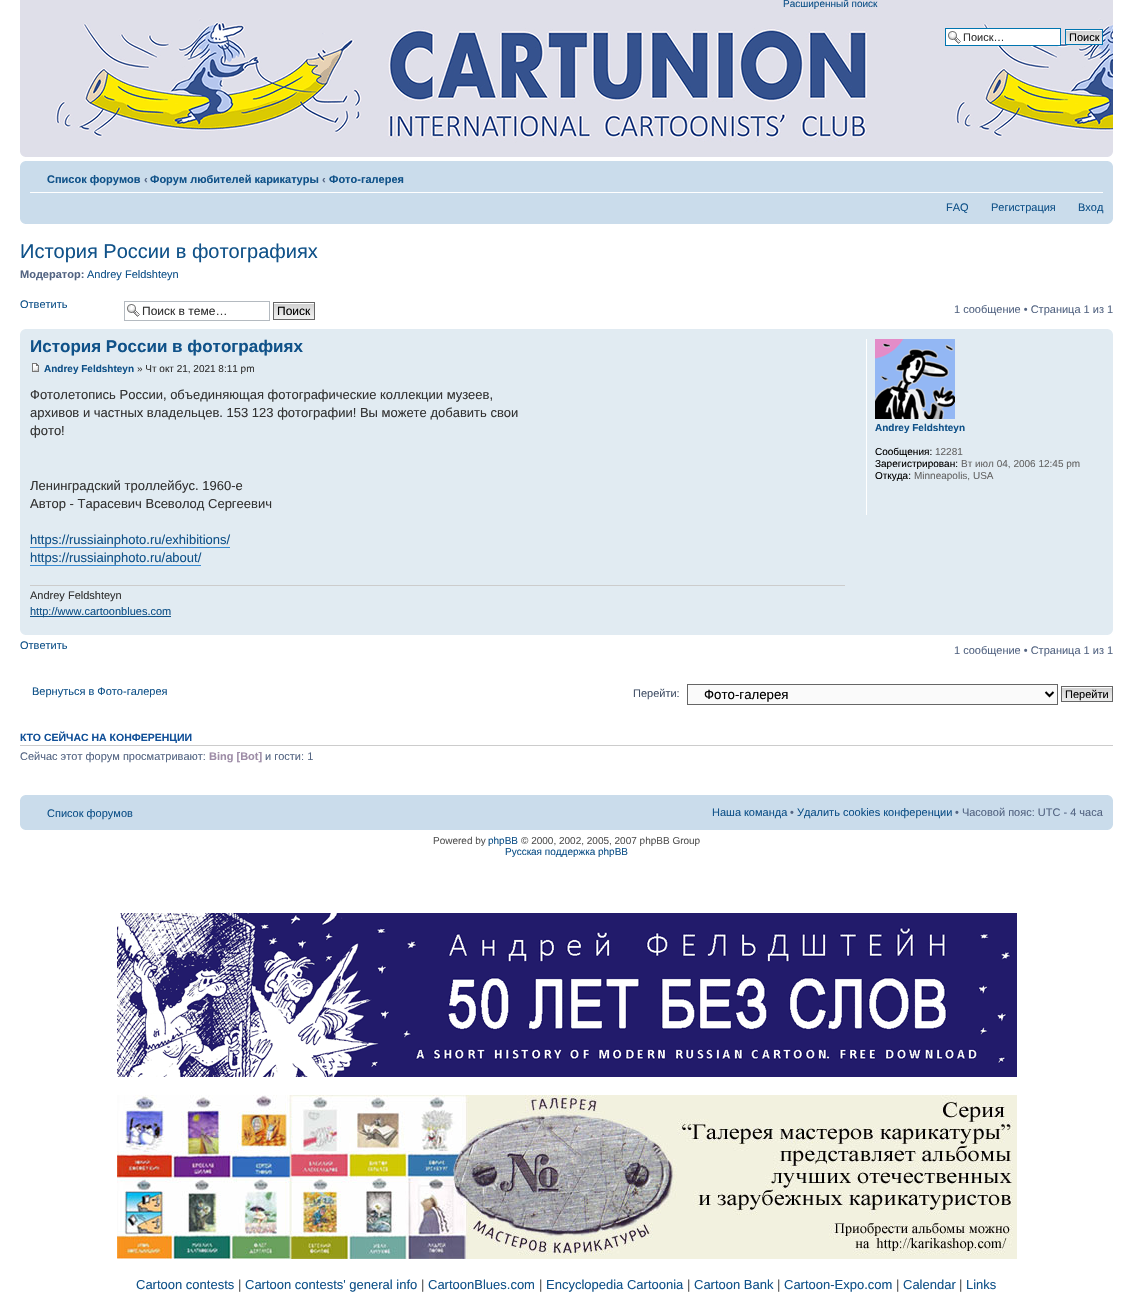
#include "include/core/SkBlurTypes.h"
#include "include/core/SkCanvas.h"
#include "include/core/SkData.h"
#include "include/core/SkFont.h"
#include "include/core/SkFontMgr.h"
#include "include/core/SkImage.h"
#include "include/core/SkMaskFilter.h"
#include "include/core/SkPaint.h"
#include "include/core/SkPathBuilder.h"
#include "include/core/SkTextBlob.h"
#include "include/effects/SkDashPathEffect.h"
#include "include/effects/SkGradientShader.h"
#include "include/utils/SkParsePath.h"

extern sk_sp<SkFontMgr> fontMgr;

void draw(SkCanvas* canvas) {
    SkPaint p;
    p.setAntiAlias(true);
    auto font = [&](const char* family, int weight, float size, bool italic = false) {
        SkFontStyle style(weight, SkFontStyle::kNormal_Width,
            italic ? SkFontStyle::kItalic_Slant : SkFontStyle::kUpright_Slant);
        SkFont result(fontMgr->matchFamilyStyle(family, style), size);
        result.setSubpixel(true);
        return result;
    };
    auto drawPhoto = [&](const char* path, float l, float t, float r, float b) {
        auto image = SkImages::DeferredFromEncodedData(SkData::MakeFromFileName(path));
        canvas->drawImageRect(image, SkRect::MakeLTRB(l, t, r, b), SkSamplingOptions());
    };
    canvas->clear(0xFFFFFFFF);
    drawPhoto("media/1.png", 20, 0, 1113, 157);
    auto font1 = font("Liberation Sans", 400, 10);
    p.setColor(0xFF105289);
    canvas->drawString("Расширенный поиск", 783, 7, font1, p);
    p.setColor(0xFFFFFFFF);
    canvas->drawRect(SkRect::MakeLTRB(946, 29, 1060, 45), p);
    drawPhoto("media/2.png", 948, 31, 961, 44);
    p.setStyle(SkPaint::kStroke_Style);
    p.setStrokeWidth(1);
    p.setColor(0xFF0075B0);
    canvas->drawRect(SkRect::MakeLTRB(945.5f, 28.5f, 1060.5f, 45.5f), p);
    auto font2 = font("Liberation Sans", 400, 11);
    p.setStyle(SkPaint::kFill_Style);
    p.setColor(0xFF333333);
    canvas->drawString("Поиск…", 963, 41, font2, p);
    drawPhoto("media/3.png", 1066, 30, 1102, 44);
    p.setStyle(SkPaint::kStroke_Style);
    p.setColor(0xFF0075B0);
    canvas->drawRect(SkRect::MakeLTRB(1065.5f, 29.5f, 1102.5f, 44.5f), p);
    p.setStyle(SkPaint::kFill_Style);
    p.setColor(0xFF000000);
    canvas->drawString("Поиск", 1069, 41, font2, p);
    drawPhoto("media/4.png", 20, 152, 25, 157);
    drawPhoto("media/5.png", 1108, 152, 1113, 157);
    p.setColor(0xFFCADCEB);
    canvas->drawRect(SkRect::MakeLTRB(20, 161, 1113, 224), p);
    drawPhoto("media/6.png", 20, 161, 25, 166);
    drawPhoto("media/7.png", 1108, 161, 1113, 166);
    p.setColor(0xFFFFFFFF);
    canvas->drawRect(SkRect::MakeLTRB(30, 192, 1103, 193), p);
    auto font3 = font("Liberation Sans", 700, 11);
    p.setColor(0xFF105289);
    canvas->drawString("Список форумов", 47, 183, font3, p);
    p.setColor(0xFF536482);
    canvas->drawString("‹", 144, 183, font3, p);
    p.setColor(0xFF105289);
    canvas->drawString("Форум любителей карикатуры", 150, 183, font3, p);
    p.setColor(0xFF536482);
    canvas->drawString("‹", 322, 183, font3, p);
    p.setColor(0xFF105289);
    canvas->drawString("Фото-галерея", 329, 183, font3, p);
    {
        const struct { const char* s; float x, y; } items[] = {
            {"FAQ", 946, 211},
            {"Регистрация", 991, 211},
            {"Вход", 1078, 211},
        };
        for (auto [s, x, y] : items) {
            canvas->drawString(s, x, y, font2, p);
        }
    }
    drawPhoto("media/8.png", 20, 219, 25, 224);
    drawPhoto("media/9.png", 1108, 219, 1113, 224);
    auto font4 = font("Liberation Sans", 400, 20);
    canvas->drawString("История России в фотографиях", 20, 258, font4, p);
    p.setColor(0xFF536482);
    canvas->drawString("Модератор:", 20, 278, font3, p);
    p.setColor(0xFF105289);
    canvas->drawString("Andrey Feldshteyn", 87, 278, font2, p);
    canvas->drawString("Ответить", 20, 308, font2, p);
    drawPhoto("media/2.png", 127, 304, 140, 317);
    p.setStyle(SkPaint::kStroke_Style);
    p.setColor(0xFFB4BAC0);
    canvas->drawRect(SkRect::MakeLTRB(124.5f, 301.5f, 269.5f, 320.5f), p);
    auto font5 = font("Liberation Sans", 400, 12);
    p.setStyle(SkPaint::kFill_Style);
    p.setColor(0xFF333333);
    canvas->drawString("Поиск в теме…", 142, 315, font5, p);
    drawPhoto("media/10.png", 274, 303, 314, 319);
    p.setStyle(SkPaint::kStroke_Style);
    p.setColor(0xFF666666);
    canvas->drawRect(SkRect::MakeLTRB(273.5f, 302.5f, 314.5f, 319.5f), p);
    p.setStyle(SkPaint::kFill_Style);
    p.setColor(0xFF000000);
    canvas->drawString("Поиск", 277, 315, font5, p);
    p.setColor(0xFF536482);
    canvas->drawString("1 сообщение • Страница 1 из 1", 954, 313, font2, p);
    p.setColor(0xFFE1EBF2);
    canvas->drawRect(SkRect::MakeLTRB(20, 329, 1113, 635), p);
    drawPhoto("media/11.png", 20, 329, 25, 334);
    drawPhoto("media/12.png", 1108, 329, 1113, 334);
    auto font6 = font("Liberation Sans", 700, 17);
    p.setColor(0xFF105289);
    canvas->drawString("История России в фотографиях", 30, 352, font6, p);
    drawPhoto("media/13.png", 32, 363, 39, 372);
    auto font7 = font("Liberation Sans", 700, 10);
    canvas->drawString("Andrey Feldshteyn", 44, 372, font7, p);
    p.setColor(0xFF333333);
    canvas->drawString("» Чт окт 21, 2021 8:11 pm", 137, 372, font1, p);
    auto font8 = font("Liberation Sans", 400, 13);
    {
        const struct { const char* s; float x, y; } items[] = {
            {"Фотолетопись России, объединяющая фотографические коллекции музеев,", 30, 399},
            {"архивов и частных владельцев. 153 123 фотографии! Вы можете добавить свои", 30, 417},
            {"фото!", 30, 435},
            {"Ленинградский троллейбус. 1960-е", 30, 490},
            {"Автор - Тарасевич Всеволод Сергеевич", 30, 508},
        };
        for (auto [s, x, y] : items) {
            canvas->drawString(s, x, y, font8, p);
        }
    }
    p.setColor(0xFF105289);
    canvas->drawString("https://russiainphoto.ru/exhibitions/", 30, 544, font8, p);
    p.setColor(0xFF368AD2);
    canvas->drawRect(SkRect::MakeLTRB(30, 547, 230, 548), p);
    p.setColor(0xFF105289);
    canvas->drawString("https://russiainphoto.ru/about/", 30, 562, font8, p);
    p.setColor(0xFF368AD2);
    canvas->drawRect(SkRect::MakeLTRB(30, 565, 201, 566), p);
    p.setColor(0xFFCCCCCC);
    canvas->drawRect(SkRect::MakeLTRB(30, 585, 845, 586), p);
    p.setColor(0xFF333333);
    canvas->drawString("Andrey Feldshteyn", 30, 599, font2, p);
    p.setColor(0xFF105289);
    canvas->drawRect(SkRect::MakeLTRB(30, 616, 171, 617), p);
    canvas->drawString("http://www.cartoonblues.com", 30, 615, font2, p);
    p.setColor(0xFFFFFFFF);
    canvas->drawRect(SkRect::MakeLTRB(866, 339, 867, 515), p);
    drawPhoto("media/14.png", 875, 339, 955, 419);
    p.setColor(0xFF105289);
    canvas->drawString("Andrey Feldshteyn", 875, 431, font7, p);
    p.setColor(0xFF000000);
    canvas->drawString("Сообщения:", 875, 455, font1, p);
    p.setColor(0xFF666666);
    canvas->drawString("12281", 935, 455, font1, p);
    p.setColor(0xFF000000);
    canvas->drawString("Зарегистрирован:", 875, 467, font1, p);
    p.setColor(0xFF666666);
    canvas->drawString("Вт июл 04, 2006 12:45 pm", 961, 467, font1, p);
    p.setColor(0xFF000000);
    canvas->drawString("Откуда:", 875, 479, font1, p);
    p.setColor(0xFF666666);
    canvas->drawString("Minneapolis, USA", 914, 479, font1, p);
    drawPhoto("media/15.png", 20, 630, 25, 635);
    drawPhoto("media/16.png", 1108, 630, 1113, 635);
    p.setColor(0xFF105289);
    canvas->drawString("Ответить", 20, 649, font2, p);
    p.setColor(0xFF536482);
    canvas->drawString("1 сообщение • Страница 1 из 1", 954, 654, font2, p);
    p.setColor(0xFF105289);
    canvas->drawString("Вернуться в Фото-галерея", 32, 695, font2, p);
    p.setColor(0xFF425067);
    canvas->drawString("Перейти:", 633, 697, font2, p);
    p.setColor(0xFFFAFAFA);
    canvas->drawRect(SkRect::MakeLTRB(687.5f, 684.5f, 1057.5f, 704.5f), p);
    p.setStyle(SkPaint::kStroke_Style);
    p.setColor(0xFF666666);
    canvas->drawRect(SkRect::MakeLTRB(687.5f, 684.5f, 1057.5f, 704.5f), p);
    p.setStrokeWidth(2);
    p.setColor(0xFF000000);
    canvas->drawPath(SkPathBuilder().moveTo(1045.5f, 692).lineTo(1049.5f, 696).lineTo(1053.5f, 692).detach(), p);
    auto font9 = font("Liberation Sans", 400, 13.25f);
    p.setStyle(SkPaint::kFill_Style);
    canvas->drawString("Фото-галерея", 704, 699, font9, p);
    drawPhoto("media/17.png", 1062, 687, 1112, 701);
    p.setStyle(SkPaint::kStroke_Style);
    p.setStrokeWidth(1);
    p.setColor(0xFF666666);
    canvas->drawRect(SkRect::MakeLTRB(1061.5f, 686.5f, 1112.5f, 701.5f), p);
    p.setStyle(SkPaint::kFill_Style);
    p.setColor(0xFF000000);
    canvas->drawString("Перейти", 1065, 698, font2, p);
    p.setColor(0xFFCCCCCC);
    canvas->drawRect(SkRect::MakeLTRB(20, 745, 1113, 746), p);
    auto font10 = font("Liberation Sans", 700, 10.5f);
    p.setColor(0xFF115098);
    canvas->drawString("КТО СЕЙЧАС НА КОНФЕРЕНЦИИ", 20, 741, font10, p);
    p.setColor(0xFF536482);
    canvas->drawString("Сейчас этот форум просматривают:", 20, 760, font2, p);
    p.setColor(0xFF9E8DA7);
    canvas->drawString("Bing [Bot]", 209, 760, font3, p);
    p.setColor(0xFF536482);
    canvas->drawString("и гости: 1", 265, 760, font2, p);
    p.setColor(0xFFCADCEB);
    canvas->drawRect(SkRect::MakeLTRB(20, 795, 1113, 830), p);
    drawPhoto("media/6.png", 20, 795, 25, 800);
    drawPhoto("media/7.png", 1108, 795, 1113, 800);
    p.setColor(0xFF105289);
    canvas->drawString("Список форумов", 47, 817, font2, p);
    canvas->drawString("Наша команда", 712, 816, font2, p);
    p.setColor(0xFF536482);
    canvas->drawString("•", 790, 816, font2, p);
    p.setColor(0xFF105289);
    canvas->drawString("Удалить cookies конференции", 797, 816, font2, p);
    p.setColor(0xFF536482);
    canvas->drawString("• Часовой пояс: UTC - 4 часа", 955, 816, font2, p);
    drawPhoto("media/8.png", 20, 825, 25, 830);
    drawPhoto("media/9.png", 1108, 825, 1113, 830);
    p.setColor(0xFF555555);
    canvas->drawString("Powered by", 433, 844, font1, p);
    p.setColor(0xFF105289);
    canvas->drawString("phpBB", 488, 844, font1, p);
    p.setColor(0xFF555555);
    canvas->drawString("© 2000, 2002, 2005, 2007 phpBB Group", 521, 844, font1, p);
    p.setColor(0xFF105289);
    canvas->drawString("Русская поддержка phpBB", 505, 855, font1, p);
    drawPhoto("media/18.png", 117, 913, 1017, 1077);
    drawPhoto("media/19.png", 117, 1095, 1017, 1259);
    canvas->drawString("Cartoon contests", 136, 1289, font8, p);
    p.setColor(0xFF555555);
    canvas->drawString("|", 238, 1289, font8, p);
    p.setColor(0xFF105289);
    canvas->drawString("Cartoon contests' general info", 245, 1289, font8, p);
    p.setColor(0xFF555555);
    canvas->drawString("|", 421, 1289, font8, p);
    p.setColor(0xFF105289);
    canvas->drawString("CartoonBlues.com", 428, 1289, font8, p);
    p.setColor(0xFF555555);
    canvas->drawString("|", 539, 1289, font8, p);
    p.setColor(0xFF105289);
    canvas->drawString("Encyclopedia Cartoonia", 546, 1289, font8, p);
    p.setColor(0xFF555555);
    canvas->drawString("|", 687, 1289, font8, p);
    p.setColor(0xFF105289);
    canvas->drawString("Cartoon Bank", 694, 1289, font8, p);
    p.setColor(0xFF555555);
    canvas->drawString("|", 777, 1289, font8, p);
    p.setColor(0xFF105289);
    canvas->drawString("Cartoon-Expo.com", 784, 1289, font8, p);
    p.setColor(0xFF555555);
    canvas->drawString("|", 896, 1289, font8, p);
    p.setColor(0xFF105289);
    canvas->drawString("Calendar", 903, 1289, font8, p);
    p.setColor(0xFF555555);
    canvas->drawString("|", 959, 1289, font8, p);
    p.setColor(0xFF105289);
    canvas->drawString("Links", 966, 1289, font8, p);
}
